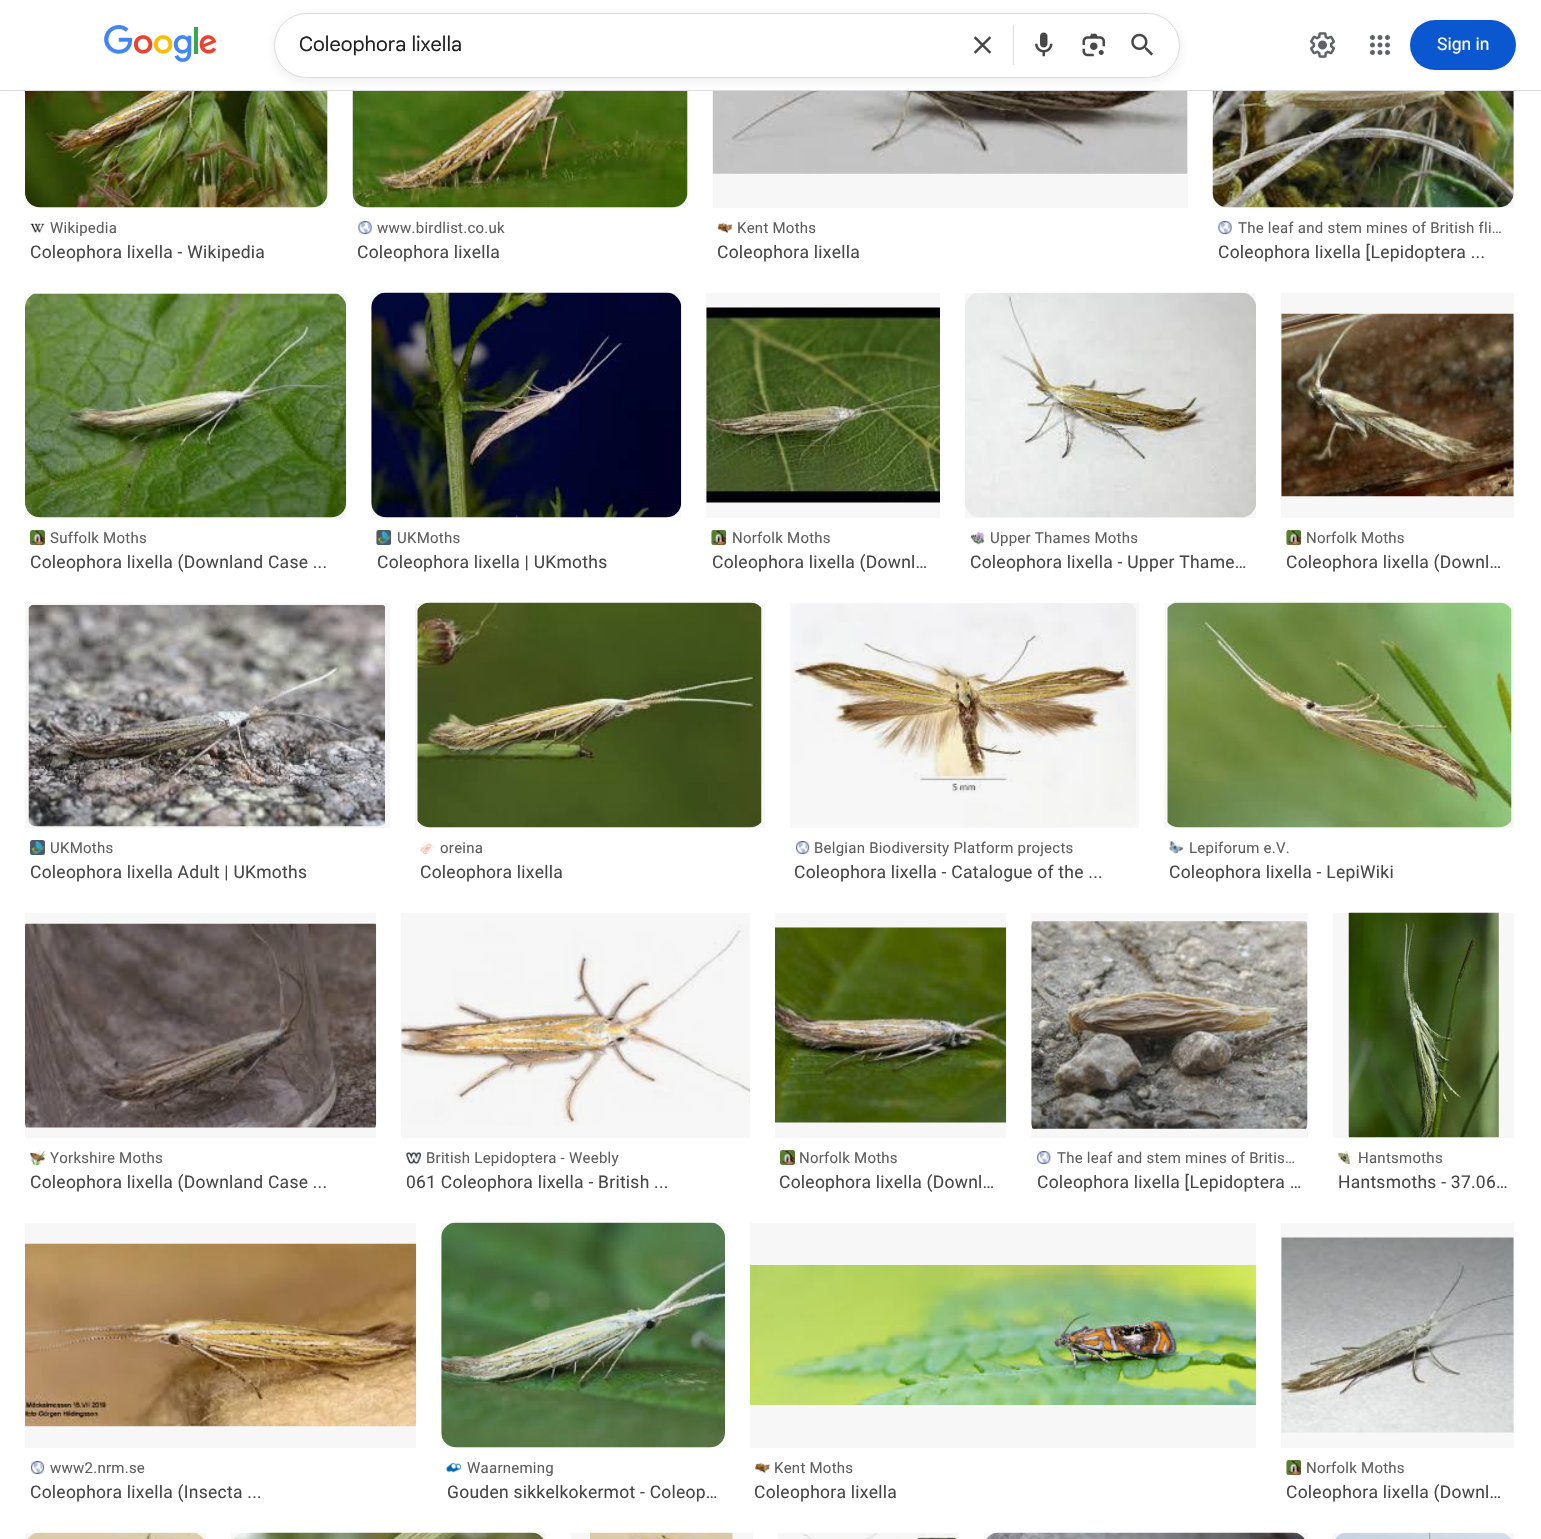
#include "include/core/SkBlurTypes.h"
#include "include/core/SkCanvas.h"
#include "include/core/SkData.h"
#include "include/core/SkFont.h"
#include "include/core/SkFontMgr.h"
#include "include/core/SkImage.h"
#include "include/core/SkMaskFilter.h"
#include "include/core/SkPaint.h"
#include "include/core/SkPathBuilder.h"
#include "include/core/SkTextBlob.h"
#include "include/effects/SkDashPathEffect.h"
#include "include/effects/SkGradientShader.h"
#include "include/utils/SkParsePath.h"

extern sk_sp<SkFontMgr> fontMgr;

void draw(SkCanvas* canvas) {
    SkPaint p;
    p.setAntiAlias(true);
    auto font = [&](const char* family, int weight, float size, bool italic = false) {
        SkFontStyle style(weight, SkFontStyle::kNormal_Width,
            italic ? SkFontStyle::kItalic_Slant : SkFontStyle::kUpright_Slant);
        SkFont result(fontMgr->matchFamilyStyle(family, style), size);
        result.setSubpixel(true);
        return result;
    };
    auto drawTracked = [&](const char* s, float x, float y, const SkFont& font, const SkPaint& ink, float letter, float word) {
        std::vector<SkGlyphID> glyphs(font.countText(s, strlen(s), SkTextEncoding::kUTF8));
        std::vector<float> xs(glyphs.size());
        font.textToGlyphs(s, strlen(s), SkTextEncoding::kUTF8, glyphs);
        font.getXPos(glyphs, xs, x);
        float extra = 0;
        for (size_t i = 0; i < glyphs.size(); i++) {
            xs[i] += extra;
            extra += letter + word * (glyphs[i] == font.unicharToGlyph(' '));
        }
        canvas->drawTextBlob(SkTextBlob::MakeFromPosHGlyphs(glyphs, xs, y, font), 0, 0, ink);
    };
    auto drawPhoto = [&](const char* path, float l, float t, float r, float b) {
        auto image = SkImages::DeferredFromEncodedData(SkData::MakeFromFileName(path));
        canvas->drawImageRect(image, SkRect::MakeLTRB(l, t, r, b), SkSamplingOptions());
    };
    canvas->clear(0xFFFFFFFF);
    p.setColor(0xFFDADCE0);
    canvas->drawRect(SkRect::MakeLTRB(0, 90, 1541, 91), p);
    drawPhoto("media/1.png", 104, 25, 217, 62);
    drawPhoto("media/8.png", 25, 91, 328, 208);
    p.setColor(0x08000000);
    canvas->drawRect(SkRect::MakeLTRB(25, 91, 328, 208), p);
    drawPhoto("media/10.png", 352, 91, 688, 208);
    canvas->drawRect(SkRect::MakeLTRB(353, 91, 688, 208), p);
    drawPhoto("media/12.png", 712, 91, 1188, 174);
    canvas->drawRect(SkRect::MakeLTRB(713, 91, 1188, 208), p);
    p.setColor(0x141F1F1F);
    p.setMaskFilter(SkMaskFilter::MakeBlur(kNormal_SkBlurStyle, 6));
    canvas->drawRoundRect(SkRect::MakeLTRB(274, 16, 1180, 81), 32.5f, 32.5f, p);
    p.setMaskFilter(nullptr);
    p.setColor(0xFFFFFFFF);
    canvas->drawRoundRect(SkRect::MakeLTRB(274.5f, 13.5f, 1179.5f, 77.5f), 32, 32, p);
    p.setStyle(SkPaint::kStroke_Style);
    p.setStrokeWidth(1);
    p.setColor(0xFFDADCE0);
    canvas->drawRoundRect(SkRect::MakeLTRB(274.5f, 13.5f, 1179.5f, 77.5f), 32, 32, p);
    auto font1 = font("Google Sans", 400, 20);
    p.setStyle(SkPaint::kFill_Style);
    p.setColor(0xFF212121);
    canvas->drawString("Coleophora lixella", 299, 51, font1, p);
    drawPhoto("media/2.png", 973, 36, 992, 54);
    p.setColor(0xFFDADCE0);
    canvas->drawRect(SkRect::MakeLTRB(1013, 25, 1014, 65), p);
    drawPhoto("media/3.png", 1035, 32, 1053, 57);
    drawPhoto("media/4.png", 1082, 33, 1105, 57);
    drawPhoto("media/5.png", 1131, 33, 1153, 56);
    drawPhoto("media/6.png", 1310, 32, 1335, 58);
    drawPhoto("media/7.png", 1370, 35, 1390, 55);
    p.setColor(0xFF0B57D0);
    canvas->drawRoundRect(SkRect::MakeLTRB(1410, 20, 1516, 70), 25, 25, p);
    auto font2 = font("Roboto", 400, 17.5f);
    p.setColor(0xFFFFFFFF);
    canvas->drawString("Sign in", 1437, 50, font2, p);
    drawPhoto("media/9.png", 30, 223, 45, 234);
    auto font3 = font("Roboto", 400, 15);
    p.setColor(0xFF5E5E5E);
    drawTracked("Wikipedia", 50, 233, font3, p, 0.25f, 0);
    p.setColor(0xFF474747);
    drawTracked("Coleophora lixella - Wikipedia", 30, 258, font2, p, 0.25f, 0);
    drawPhoto("media/11.png", 358, 221, 372, 235);
    p.setColor(0xFF5E5E5E);
    drawTracked("www.birdlist.co.uk", 377, 233, font3, p, 0.25f, 0);
    p.setColor(0xFF474747);
    drawTracked("Coleophora lixella", 357, 258, font2, p, 0.25f, 0);
    drawPhoto("media/13.png", 717, 222, 733, 234);
    p.setColor(0xFF5E5E5E);
    drawTracked("Kent Moths", 737, 233, font3, p, 0.25f, 0);
    p.setColor(0xFF474747);
    drawTracked("Coleophora lixella", 717, 258, font2, p, 0.25f, 0);
    drawPhoto("media/14.png", 1212, 91, 1514, 208);
    p.setColor(0x08000000);
    canvas->drawRect(SkRect::MakeLTRB(1213, 91, 1514, 208), p);
    drawPhoto("media/11.png", 1218, 221, 1232, 235);
    p.setColor(0xFF5E5E5E);
    drawTracked("The leaf and stem mines of British fli…", 1238, 233, font3, p, 0.25f, 0);
    p.setColor(0xFF474747);
    drawTracked("Coleophora lixella [Lepidoptera ...", 1218, 258, font2, p, 0.25f, 0);
    drawPhoto("media/15.png", 25, 293, 347, 518);
    p.setColor(0x08000000);
    canvas->drawRect(SkRect::MakeLTRB(25, 293, 346, 518), p);
    drawPhoto("media/16.png", 30, 530, 45, 545);
    p.setColor(0xFF5E5E5E);
    drawTracked("Suffolk Moths", 50, 543, font3, p, 0.25f, 0);
    p.setColor(0xFF474747);
    drawTracked("Coleophora lixella (Downland Case ...", 30, 568, font2, p, 0.25f, 0);
    drawPhoto("media/17.png", 371, 292, 682, 518);
    p.setColor(0x08000000);
    canvas->drawRect(SkRect::MakeLTRB(371, 293, 681, 518), p);
    drawPhoto("media/18.png", 376, 530, 392, 545);
    p.setColor(0xFF5E5E5E);
    drawTracked("UKMoths", 397, 543, font3, p, 0.25f, 0);
    p.setColor(0xFF474747);
    drawTracked("Coleophora lixella | UKmoths", 377, 568, font2, p, 0.25f, 0);
    drawPhoto("media/19.png", 706, 307, 940, 503);
    p.setColor(0x08000000);
    canvas->drawRect(SkRect::MakeLTRB(706, 293, 940, 518), p);
    drawPhoto("media/20.png", 711, 530, 727, 545);
    p.setColor(0xFF5E5E5E);
    drawTracked("Norfolk Moths", 732, 543, font3, p, 0.25f, 0);
    p.setColor(0xFF474747);
    drawTracked("Coleophora lixella (Downl…", 712, 568, font2, p, 0.25f, 0);
    drawPhoto("media/21.png", 965, 292, 1256, 518);
    p.setColor(0x08000000);
    canvas->drawRect(SkRect::MakeLTRB(965, 293, 1256, 518), p);
    drawPhoto("media/22.png", 970, 531, 985, 545);
    p.setColor(0xFF5E5E5E);
    drawTracked("Upper Thames Moths", 990, 543, font3, p, 0.25f, 0);
    p.setColor(0xFF474747);
    drawTracked("Coleophora lixella - Upper Thame…", 970, 568, font2, p, 0.25f, 0);
    drawPhoto("media/23.png", 1281, 313, 1514, 497);
    p.setColor(0x08000000);
    canvas->drawRect(SkRect::MakeLTRB(1281, 293, 1514, 518), p);
    drawPhoto("media/24.png", 1286, 530, 1302, 545);
    p.setColor(0xFF5E5E5E);
    drawTracked("Norfolk Moths", 1306, 543, font3, p, 0.25f, 0);
    p.setColor(0xFF474747);
    drawTracked("Coleophora lixella (Downl…", 1286, 568, font2, p, 0.25f, 0);
    drawPhoto("media/25.png", 28, 605, 385, 827);
    p.setColor(0x08000000);
    canvas->drawRect(SkRect::MakeLTRB(25, 603, 390, 828), p);
    drawPhoto("media/26.png", 30, 840, 45, 855);
    p.setColor(0xFF5E5E5E);
    drawTracked("UKMoths", 50, 853, font3, p, 0.25f, 0);
    p.setColor(0xFF474747);
    drawTracked("Coleophora lixella Adult | UKmoths", 30, 878, font2, p, 0.25f, 0);
    drawPhoto("media/27.png", 417, 602, 762, 828);
    p.setColor(0x08000000);
    canvas->drawRect(SkRect::MakeLTRB(415, 603, 765, 828), p);
    drawPhoto("media/28.png", 420, 840, 435, 855);
    p.setColor(0xFF5E5E5E);
    drawTracked("oreina", 440, 853, font3, p, 0.25f, 0);
    p.setColor(0xFF474747);
    drawTracked("Coleophora lixella", 420, 878, font2, p, 0.25f, 0);
    drawPhoto("media/29.png", 792, 603, 1136, 827);
    p.setColor(0x08000000);
    canvas->drawRect(SkRect::MakeLTRB(790, 603, 1139, 828), p);
    drawPhoto("media/30.png", 796, 841, 810, 855);
    p.setColor(0xFF5E5E5E);
    drawTracked("Belgian Biodiversity Platform projects", 814, 853, font3, p, 0.25f, 0);
    p.setColor(0xFF474747);
    drawTracked("Coleophora lixella - Catalogue of the ...", 794, 878, font2, p, 0.25f, 0);
    drawPhoto("media/31.png", 1167, 602, 1512, 828);
    p.setColor(0x08000000);
    canvas->drawRect(SkRect::MakeLTRB(1164, 603, 1514, 828), p);
    drawPhoto("media/32.png", 1169, 841, 1184, 854);
    p.setColor(0xFF5E5E5E);
    drawTracked("Lepiforum e.V.", 1189, 853, font3, p, 0.25f, 0);
    p.setColor(0xFF474747);
    drawTracked("Coleophora lixella - LepiWiki", 1169, 878, font2, p, 0.25f, 0);
    drawPhoto("media/33.png", 25, 923, 377, 1128);
    p.setColor(0x08000000);
    canvas->drawRect(SkRect::MakeLTRB(25, 913, 376, 1138), p);
    drawPhoto("media/34.png", 30, 1150, 45, 1165);
    p.setColor(0xFF5E5E5E);
    drawTracked("Yorkshire Moths", 50, 1163, font3, p, 0.25f, 0);
    p.setColor(0xFF474747);
    drawTracked("Coleophora lixella (Downland Case ...", 30, 1188, font2, p, 0.25f, 0);
    drawPhoto("media/35.png", 401, 924, 750, 1126);
    p.setColor(0x08000000);
    canvas->drawRect(SkRect::MakeLTRB(401, 913, 750, 1138), p);
    drawPhoto("media/36.png", 406, 1151, 422, 1165);
    p.setColor(0xFF5E5E5E);
    drawTracked("British Lepidoptera - Weebly", 426, 1163, font3, p, 0.25f, 0);
    p.setColor(0xFF474747);
    drawTracked("061 Coleophora lixella - British ...", 406, 1188, font2, p, 0.25f, 0);
    drawPhoto("media/37.png", 775, 927, 1007, 1123);
    p.setColor(0x08000000);
    canvas->drawRect(SkRect::MakeLTRB(775, 913, 1006, 1138), p);
    drawPhoto("media/38.png", 780, 1150, 795, 1165);
    p.setColor(0xFF5E5E5E);
    drawTracked("Norfolk Moths", 799, 1163, font3, p, 0.25f, 0);
    p.setColor(0xFF474747);
    drawTracked("Coleophora lixella (Downl…", 779, 1188, font2, p, 0.25f, 0);
    drawPhoto("media/39.png", 1031, 921, 1308, 1129);
    p.setColor(0x08000000);
    canvas->drawRect(SkRect::MakeLTRB(1031, 913, 1308, 1138), p);
    drawPhoto("media/40.png", 1037, 1151, 1051, 1165);
    p.setColor(0xFF5E5E5E);
    drawTracked("The leaf and stem mines of Britis…", 1057, 1163, font3, p, 0.25f, 0);
    p.setColor(0xFF474747);
    drawTracked("Coleophora lixella [Lepidoptera …", 1037, 1188, font2, p, 0.25f, 0);
    drawPhoto("media/41.png", 1348, 912, 1499, 1138);
    p.setColor(0x08000000);
    canvas->drawRect(SkRect::MakeLTRB(1333, 913, 1514, 1138), p);
    drawPhoto("media/42.png", 1337, 1151, 1352, 1165);
    p.setColor(0xFF5E5E5E);
    drawTracked("Hantsmoths", 1358, 1163, font3, p, 0.25f, 0);
    p.setColor(0xFF474747);
    drawTracked("Hantsmoths - 37.06…", 1338, 1188, font2, p, 0.25f, 0);
    drawPhoto("media/43.png", 25, 1243, 417, 1427);
    p.setColor(0x08000000);
    canvas->drawRect(SkRect::MakeLTRB(25, 1223, 416, 1448), p);
    drawPhoto("media/44.png", 31, 1461, 45, 1475);
    p.setColor(0xFF5E5E5E);
    drawTracked("www2.nrm.se", 50, 1473, font3, p, 0.25f, 0);
    p.setColor(0xFF474747);
    drawTracked("Coleophora lixella (Insecta ...", 30, 1498, font2, p, 0.25f, 0);
    drawPhoto("media/45.png", 441, 1222, 725, 1448);
    p.setColor(0x08000000);
    canvas->drawRect(SkRect::MakeLTRB(441, 1223, 725, 1448), p);
    drawPhoto("media/46.png", 446, 1462, 462, 1473);
    p.setColor(0xFF5E5E5E);
    drawTracked("Waarneming", 467, 1473, font3, p, 0.25f, 0);
    p.setColor(0xFF474747);
    drawTracked("Gouden sikkelkokermot - Coleop…", 447, 1498, font2, p, 0.25f, 0);
    drawPhoto("media/47.png", 750, 1265, 1257, 1405);
    p.setColor(0x08000000);
    canvas->drawRect(SkRect::MakeLTRB(750, 1223, 1256, 1448), p);
    drawPhoto("media/48.png", 755, 1462, 770, 1474);
    p.setColor(0xFF5E5E5E);
    drawTracked("Kent Moths", 774, 1473, font3, p, 0.25f, 0);
    p.setColor(0xFF474747);
    drawTracked("Coleophora lixella", 754, 1498, font2, p, 0.25f, 0);
    drawPhoto("media/49.png", 1281, 1237, 1514, 1433);
    p.setColor(0x08000000);
    canvas->drawRect(SkRect::MakeLTRB(1281, 1223, 1514, 1448), p);
    drawPhoto("media/24.png", 1286, 1460, 1302, 1475);
    p.setColor(0xFF5E5E5E);
    drawTracked("Norfolk Moths", 1306, 1473, font3, p, 0.25f, 0);
    p.setColor(0xFF474747);
    drawTracked("Coleophora lixella (Downl…", 1286, 1498, font2, p, 0.25f, 0);
    drawPhoto("media/50.png", 27, 1532, 204, 1539);
    p.setColor(0x08000000);
    canvas->drawRect(SkRect::MakeLTRB(25, 1533, 206, 1539), p);
    drawPhoto("media/51.png", 234, 1532, 544, 1539);
    canvas->drawRect(SkRect::MakeLTRB(231, 1533, 546, 1539), p);
    drawPhoto("media/52.png", 590, 1532, 733, 1539);
    canvas->drawRect(SkRect::MakeLTRB(571, 1533, 753, 1539), p);
    drawPhoto("media/53.png", 802, 1532, 956, 1539);
    canvas->drawRect(SkRect::MakeLTRB(778, 1533, 959, 1539), p);
    drawPhoto("media/54.png", 986, 1532, 1305, 1539);
    canvas->drawRect(SkRect::MakeLTRB(984, 1533, 1308, 1539), p);
    drawPhoto("media/55.png", 1335, 1532, 1511, 1539);
    canvas->drawRect(SkRect::MakeLTRB(1333, 1533, 1514, 1539), p);
}
